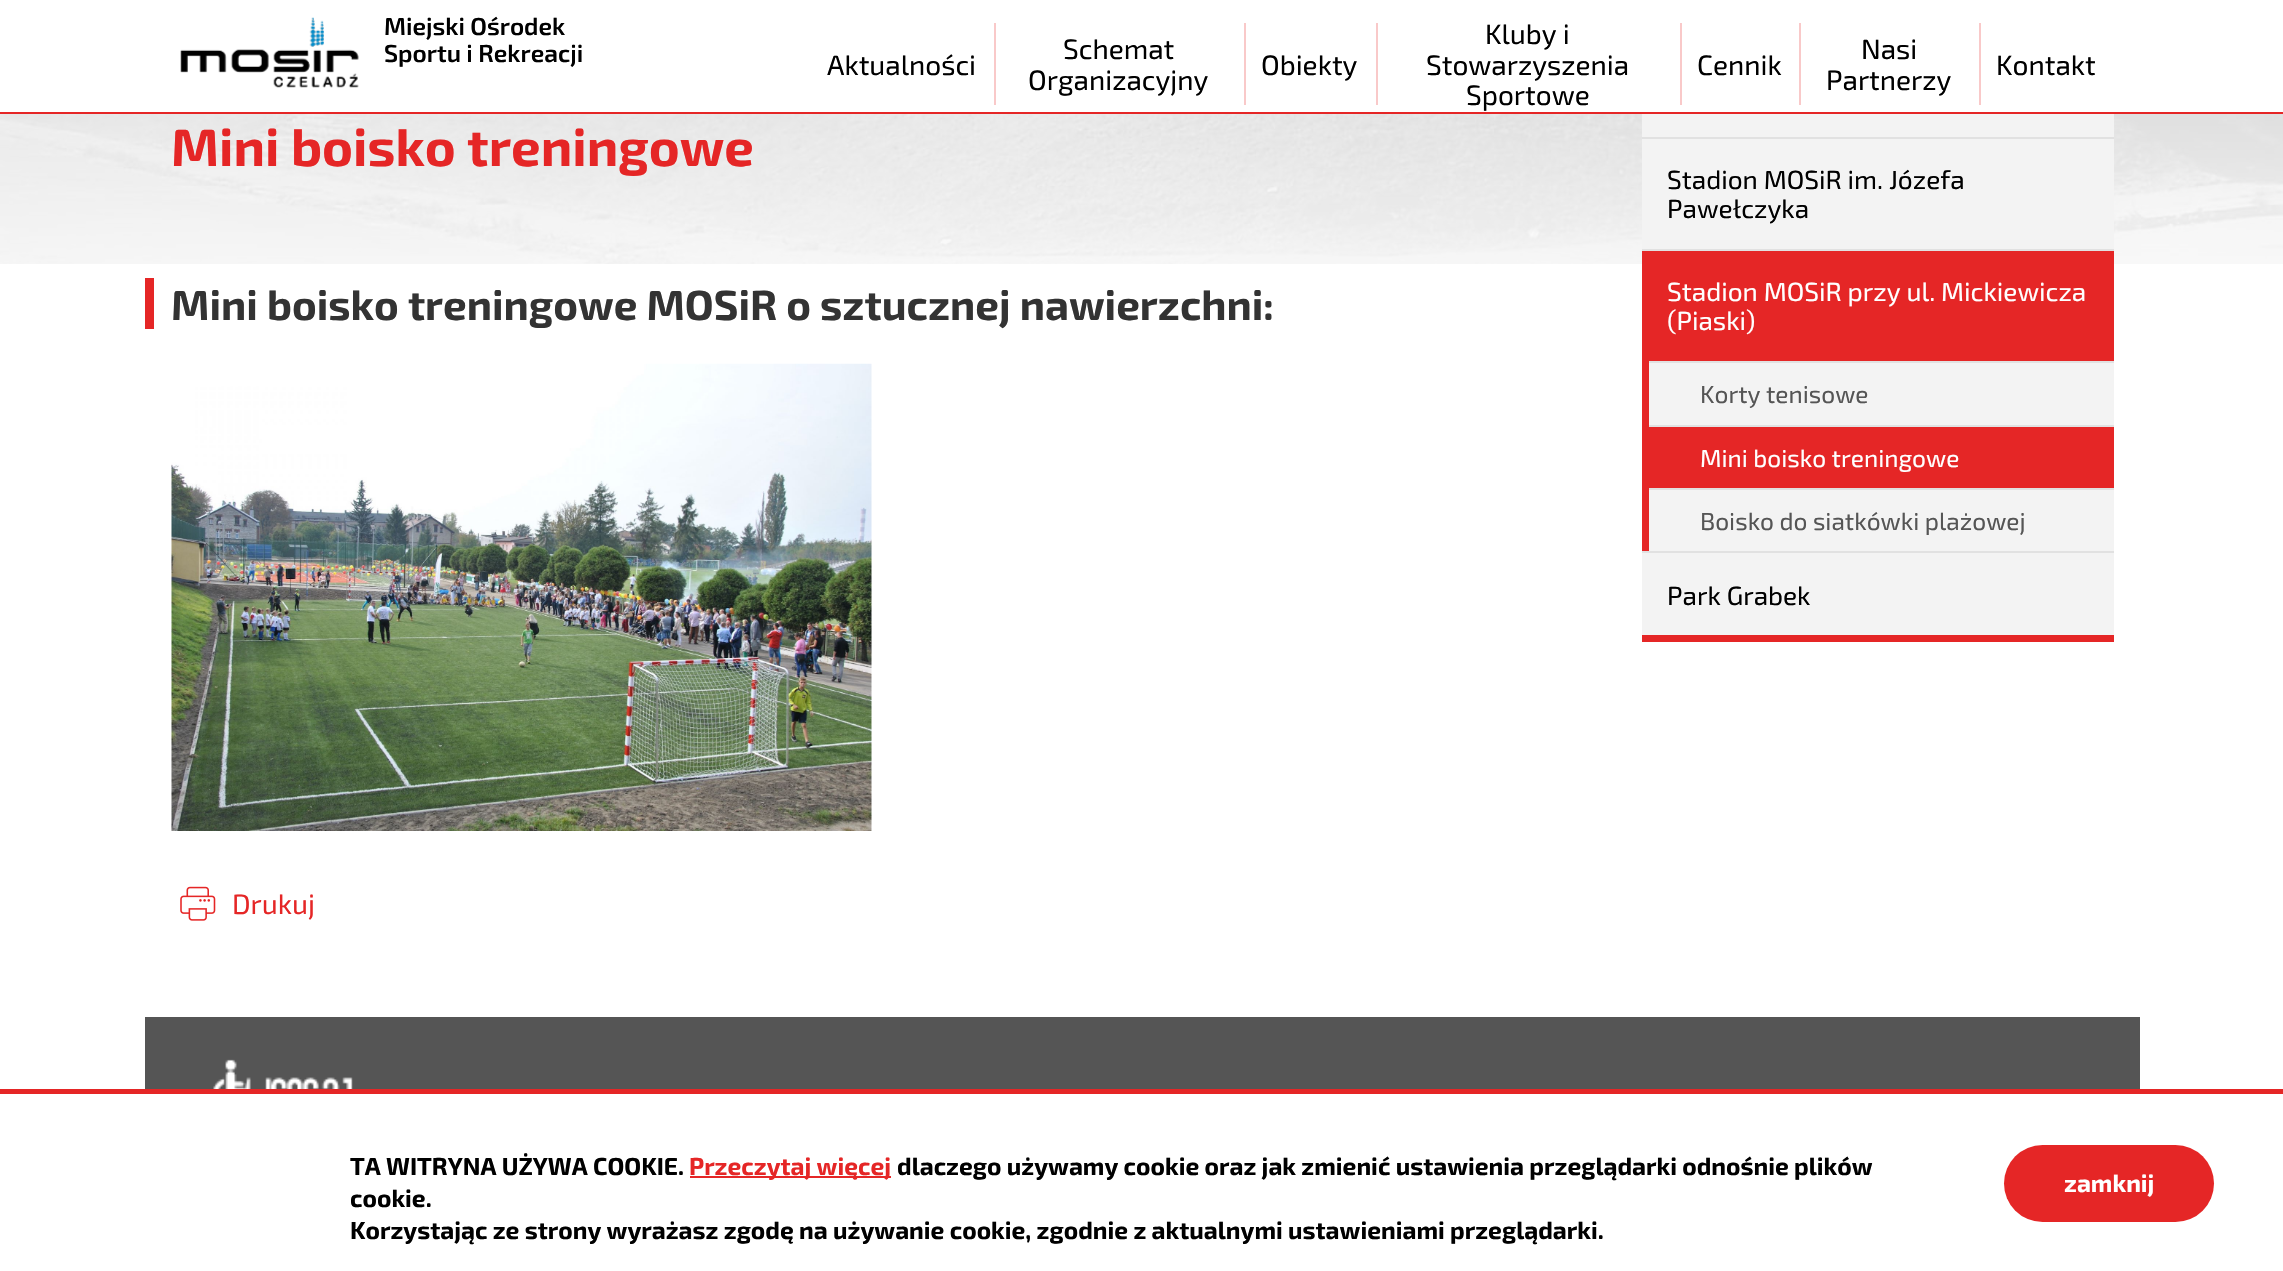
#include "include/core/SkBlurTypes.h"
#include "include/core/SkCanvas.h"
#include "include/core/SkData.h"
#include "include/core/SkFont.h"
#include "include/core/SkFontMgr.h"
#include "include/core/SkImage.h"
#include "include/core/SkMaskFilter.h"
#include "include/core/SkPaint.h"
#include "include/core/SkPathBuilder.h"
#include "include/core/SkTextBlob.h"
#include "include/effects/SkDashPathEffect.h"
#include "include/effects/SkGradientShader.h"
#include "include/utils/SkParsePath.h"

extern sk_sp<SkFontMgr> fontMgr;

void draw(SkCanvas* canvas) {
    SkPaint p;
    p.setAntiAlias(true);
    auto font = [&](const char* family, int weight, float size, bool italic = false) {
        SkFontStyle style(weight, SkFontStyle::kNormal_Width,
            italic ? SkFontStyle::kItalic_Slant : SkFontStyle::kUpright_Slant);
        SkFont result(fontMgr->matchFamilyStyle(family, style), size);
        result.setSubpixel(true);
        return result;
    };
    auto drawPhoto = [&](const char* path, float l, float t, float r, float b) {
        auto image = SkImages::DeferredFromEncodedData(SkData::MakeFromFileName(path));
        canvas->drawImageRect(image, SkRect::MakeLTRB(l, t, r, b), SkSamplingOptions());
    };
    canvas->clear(0xFFFFFFFF);
    p.setColor(0xFFE52626);
    canvas->drawRect(SkRect::MakeLTRB(0, 112, 2283, 114), p);
    drawPhoto("media/1.png", 180, 17, 359, 88);
    auto font1 = font("Exo 2", 600, 24.5f);
    p.setColor(0xFF000000);
    canvas->drawString("Miejski Ośrodek", 384, 35, font1, p);
    canvas->drawString("Sportu i Rekreacji", 384, 62, font1, p);
    auto font2 = font("Exo 2", 400, 28);
    canvas->drawString("Aktualności", 827, 75, font2, p);
    p.setColor(0xFFF9C9C9);
    canvas->drawRect(SkRect::MakeLTRB(994, 23, 996, 105), p);
    p.setColor(0xFF000000);
    canvas->drawString("Schemat", 1063, 59, font2, p);
    canvas->drawString("Organizacyjny", 1028, 90, font2, p);
    p.setColor(0xFFF9C9C9);
    canvas->drawRect(SkRect::MakeLTRB(1244, 23, 1246, 105), p);
    p.setColor(0xFF000000);
    canvas->drawString("Obiekty", 1261, 75, font2, p);
    p.setColor(0xFFF9C9C9);
    canvas->drawRect(SkRect::MakeLTRB(1376, 23, 1378, 105), p);
    p.setColor(0xFF000000);
    {
        const struct { const char* s; float x, y; } items[] = {
            {"Kluby i", 1485, 44},
            {"Stowarzyszenia", 1426, 75},
            {"Sportowe", 1466, 105},
        };
        for (auto [s, x, y] : items) {
            canvas->drawString(s, x, y, font2, p);
        }
    }
    p.setColor(0xFFF9C9C9);
    canvas->drawRect(SkRect::MakeLTRB(1680, 23, 1682, 105), p);
    p.setColor(0xFF000000);
    canvas->drawString("Cennik", 1697, 75, font2, p);
    p.setColor(0xFFF9C9C9);
    canvas->drawRect(SkRect::MakeLTRB(1799, 23, 1801, 105), p);
    p.setColor(0xFF000000);
    canvas->drawString("Nasi", 1861, 59, font2, p);
    canvas->drawString("Partnerzy", 1826, 90, font2, p);
    p.setColor(0xFFF9C9C9);
    canvas->drawRect(SkRect::MakeLTRB(1979, 23, 1981, 105), p);
    p.setColor(0xFF000000);
    canvas->drawString("Kontakt", 1996, 75, font2, p);
    p.setColor(0xFFCACACA);
    canvas->drawRect(SkRect::MakeLTRB(0, 114, 2283, 264), p);
    drawPhoto("media/2.png", 0, 114, 2283, 264);
    {
        const SkColor colors[] = {0xA6FFFFFF, 0xFFFFFFFF};
        const float stops[] = {0, 0.39f};
        const SkPoint ends[] = {{1142, 54}, {1142, 947}};
        p.setShader(SkGradientShader::MakeLinear(ends, colors, stops, 2, SkTileMode::kClamp));
        p.setAlpha(255);
    }
    canvas->drawRect(SkRect::MakeLTRB(0, 114, 2283, 264), p);
    auto font3 = font("Exo 2", 700, 52.5f);
    p.setShader(nullptr);
    p.setColor(0xFFE52626);
    canvas->drawString("Mini boisko treningowe", 171, 166, font3, p);
    canvas->drawRect(SkRect::MakeLTRB(145, 278, 154, 329), p);
    auto font4 = font("Exo 2", 700, 42);
    p.setColor(0xFF333333);
    canvas->drawString("Mini boisko treningowe MOSiR o sztucznej nawierzchni:", 171, 320, font4, p);
    drawPhoto("media/3.png", 171, 363, 872, 831);
    drawPhoto("media/4.png", 180, 886, 216, 921);
    p.setColor(0xFFE52626);
    canvas->drawString("Drukuj", 232, 914, font2, p);
    {
        const struct { float l, t, r, b; SkColor color; } items[] = {
            {1642, 635, 2114, 642, 0xFFE52626},
            {1642, 251, 2114, 551, 0xFFE52626},
            {1642, 114, 2114, 137, 0xFFF3F3F3},
            {1642, 139, 2114, 249, 0xFFF3F3F3},
            {1642, 137, 2114, 139, 0xFFE1E1E1},
        };
        for (auto [l, t, r, b, color] : items) {
            p.setColor(color);
            canvas->drawRect(SkRect::MakeLTRB(l, t, r, b), p);
        }
    }
    auto font5 = font("Exo 2", 400, 26.25f);
    p.setColor(0xFF000000);
    canvas->drawString("Stadion MOSiR im. Józefa", 1667, 189, font5, p);
    canvas->drawString("Pawełczyka", 1667, 218, font5, p);
    p.setColor(0xFFE1E1E1);
    canvas->drawRect(SkRect::MakeLTRB(1642, 249, 2114, 251), p);
    p.setColor(0xFFFFFFFF);
    canvas->drawString("Stadion MOSiR przy ul. Mickiewicza", 1667, 301, font5, p);
    canvas->drawString("(Piaski)", 1667, 330, font5, p);
    p.setColor(0xFFF3F3F3);
    canvas->drawRect(SkRect::MakeLTRB(1649, 363, 2114, 425), p);
    p.setColor(0xFFE1E1E1);
    canvas->drawRect(SkRect::MakeLTRB(1649, 361, 2114, 363), p);
    auto font6 = font("Exo 2", 400, 24.5f);
    p.setColor(0xFF555555);
    canvas->drawString("Korty tenisowe", 1700, 403, font6, p);
    p.setColor(0xFFE1E1E1);
    canvas->drawRect(SkRect::MakeLTRB(1649, 425, 2114, 427), p);
    p.setColor(0xFFFFFFFF);
    canvas->drawString("Mini boisko treningowe", 1700, 467, font6, p);
    p.setColor(0xFFF3F3F3);
    canvas->drawRect(SkRect::MakeLTRB(1649, 490, 2114, 551), p);
    p.setColor(0xFFE1E1E1);
    canvas->drawRect(SkRect::MakeLTRB(1649, 488, 2114, 490), p);
    p.setColor(0xFF555555);
    canvas->drawString("Boisko do siatkówki plażowej", 1700, 530, font6, p);
    p.setColor(0xFFF3F3F3);
    canvas->drawRect(SkRect::MakeLTRB(1642, 553, 2114, 635), p);
    p.setColor(0xFFE1E1E1);
    canvas->drawRect(SkRect::MakeLTRB(1642, 551, 2114, 553), p);
    p.setColor(0xFF000000);
    canvas->drawString("Park Grabek", 1667, 605, font5, p);
    p.setColor(0xFF555555);
    canvas->drawRect(SkRect::MakeLTRB(145, 1017, 2140, 1089), p);
    drawPhoto("media/5.png", 213, 1059, 353, 1089);
    p.setColor(0xFFE52626);
    canvas->drawRect(SkRect::MakeLTRB(0, 1089, 2283, 1094), p);
    auto font7 = font("Exo 2", 700, 24.5f);
    p.setColor(0xFF000000);
    canvas->drawString("TA WITRYNA UŻYWA COOKIE.", 350, 1175, font7, p);
    p.setColor(0xFFE52626);
    canvas->drawRect(SkRect::MakeLTRB(690, 1176, 891, 1178), p);
    canvas->drawString("Przeczytaj więcej", 689, 1175, font7, p);
    p.setColor(0xFF000000);
    {
        const struct { const char* s; float x, y; } items[] = {
            {"dlaczego używamy cookie oraz jak zmienić ustawienia przeglądarki odnośnie plików", 897, 1175},
            {"cookie.", 350, 1207},
            {"Korzystając ze strony wyrażasz zgodę na używanie cookie, zgodnie z aktualnymi ustawieniami przeglądarki.", 350, 1239},
        };
        for (auto [s, x, y] : items) {
            canvas->drawString(s, x, y, font7, p);
        }
    }
    p.setColor(0xFFE52626);
    canvas->drawRoundRect(SkRect::MakeLTRB(2004, 1145, 2214, 1222), 38.5f, 38.5f, p);
    p.setColor(0xFFFFFFFF);
    canvas->drawString("zamknij", 2064, 1192, font7, p);
}
